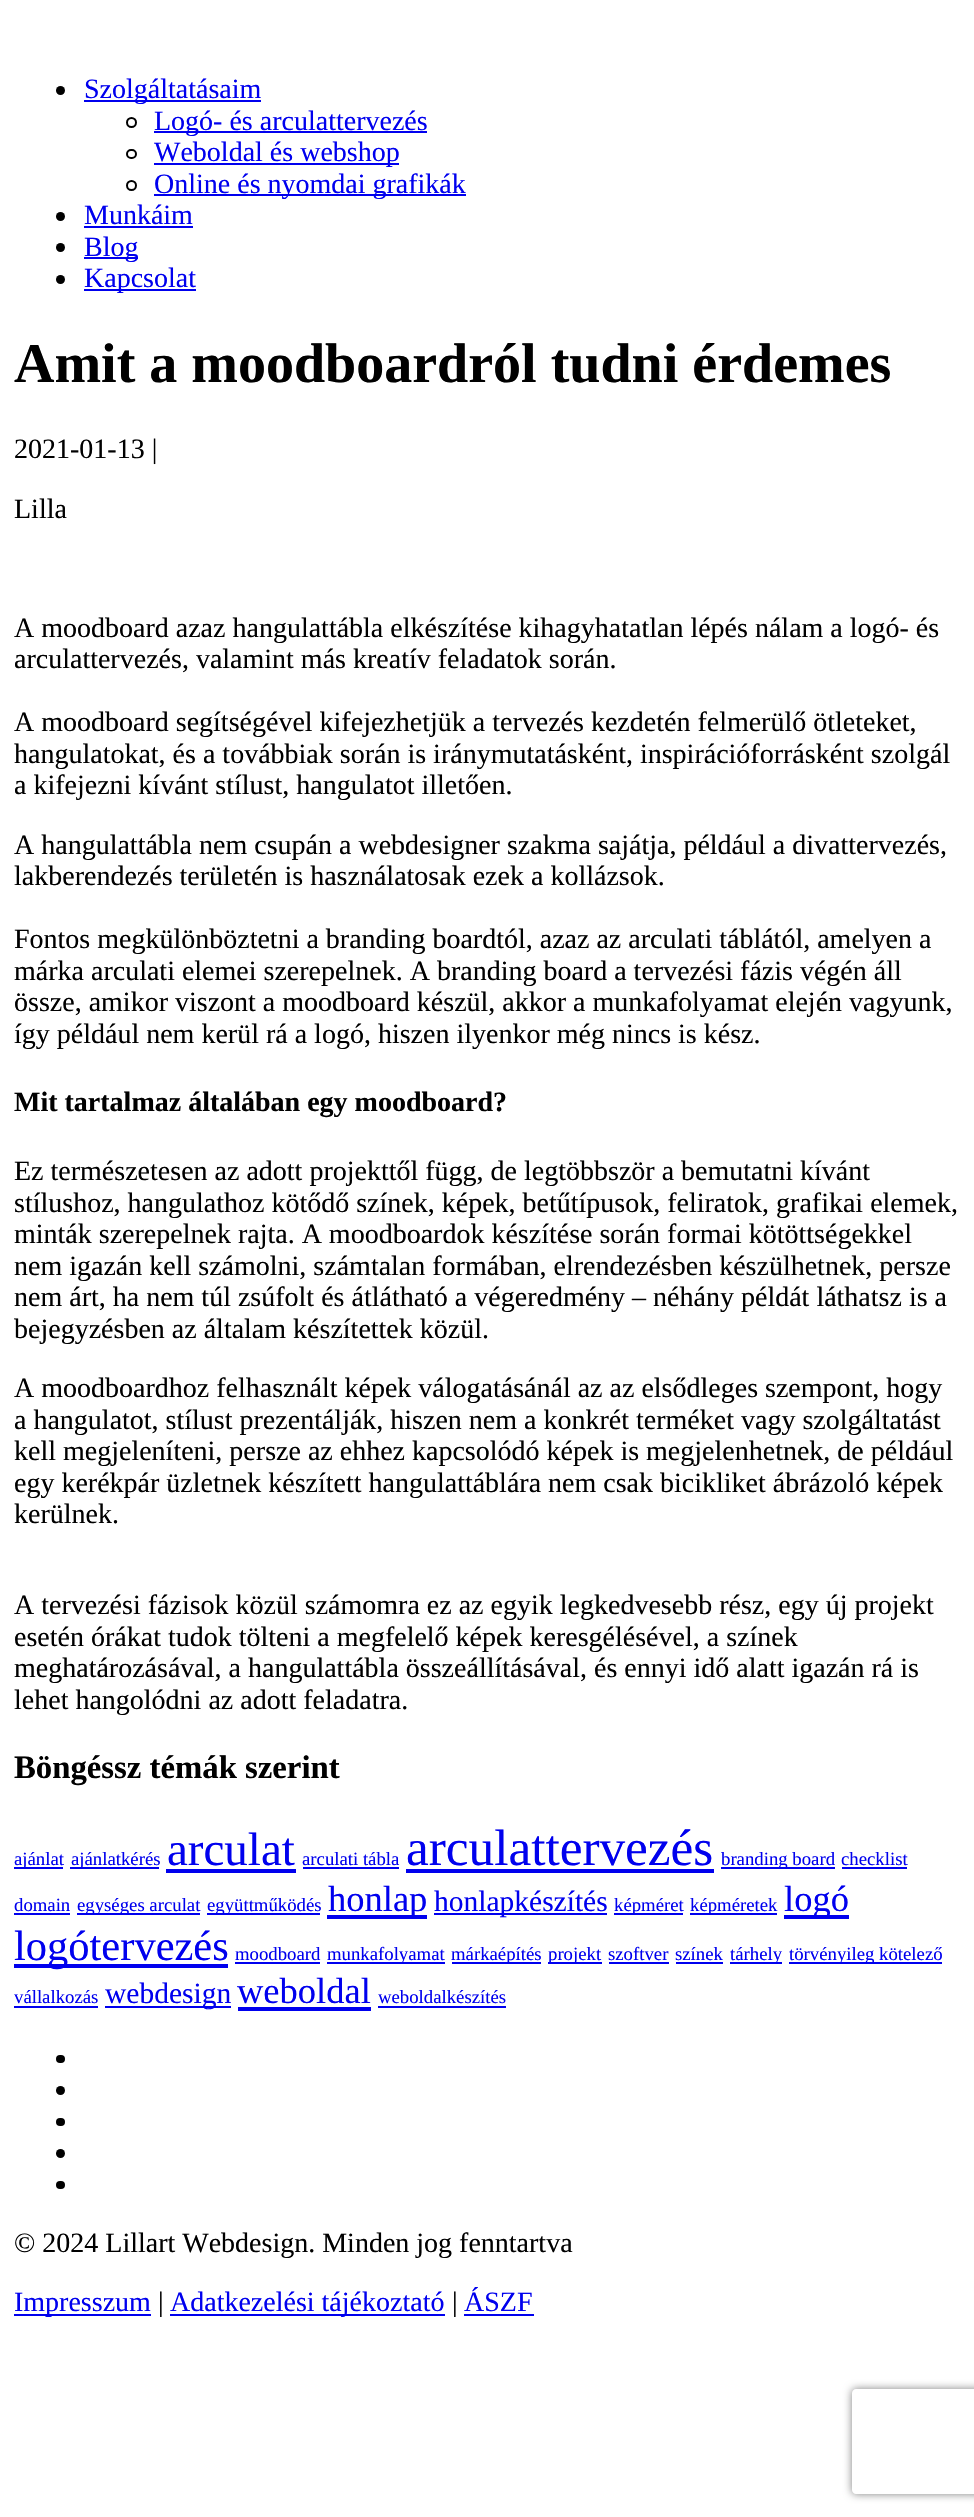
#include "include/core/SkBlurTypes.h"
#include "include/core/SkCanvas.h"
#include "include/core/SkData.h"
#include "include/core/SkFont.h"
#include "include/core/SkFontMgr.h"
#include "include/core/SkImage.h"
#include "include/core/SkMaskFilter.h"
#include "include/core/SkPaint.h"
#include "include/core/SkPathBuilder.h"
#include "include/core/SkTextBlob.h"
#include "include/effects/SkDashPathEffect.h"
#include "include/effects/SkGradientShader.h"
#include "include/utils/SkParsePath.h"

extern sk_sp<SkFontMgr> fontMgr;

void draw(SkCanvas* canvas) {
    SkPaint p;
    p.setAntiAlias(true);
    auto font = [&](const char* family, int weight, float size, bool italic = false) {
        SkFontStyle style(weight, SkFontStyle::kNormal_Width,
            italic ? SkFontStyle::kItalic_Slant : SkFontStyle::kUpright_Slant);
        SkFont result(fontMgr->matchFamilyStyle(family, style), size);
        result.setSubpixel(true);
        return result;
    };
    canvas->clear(0xFFFFFFFF);
    p.setColor(0xFF000000);
    canvas->drawCircle(60.5f, 90.5f, 4.5f, p);
    p.setColor(0xFF0000EE);
    canvas->drawRect(SkRect::MakeLTRB(84, 100, 261, 102), p);
    auto font1 = font("Liberation Serif", 400, 28);
    canvas->drawString("Szolgáltatásaim", 84, 98, font1, p);
    p.setStyle(SkPaint::kStroke_Style);
    p.setStrokeWidth(2);
    p.setColor(0xFF000000);
    canvas->drawCircle(131.5f, 122.5f, 4.5f, p);
    p.setStyle(SkPaint::kFill_Style);
    p.setColor(0xFF0000EE);
    canvas->drawRect(SkRect::MakeLTRB(154, 131, 427, 133), p);
    canvas->drawString("Logó- és arculattervezés", 154, 130, font1, p);
    p.setStyle(SkPaint::kStroke_Style);
    p.setColor(0xFF000000);
    canvas->drawRoundRect(SkRect::MakeLTRB(127, 150, 136, 158), 4, 4, p);
    p.setStyle(SkPaint::kFill_Style);
    p.setColor(0xFF0000EE);
    canvas->drawRect(SkRect::MakeLTRB(154, 163, 399, 165), p);
    canvas->drawString("Weboldal és webshop", 154, 161, font1, p);
    p.setStyle(SkPaint::kStroke_Style);
    p.setColor(0xFF000000);
    canvas->drawCircle(131.5f, 185.5f, 4.5f, p);
    p.setStyle(SkPaint::kFill_Style);
    p.setColor(0xFF0000EE);
    canvas->drawRect(SkRect::MakeLTRB(154, 194, 466, 196), p);
    canvas->drawString("Online és nyomdai grafikák", 154, 193, font1, p);
    p.setColor(0xFF000000);
    canvas->drawCircle(60.5f, 216.5f, 4.5f, p);
    p.setColor(0xFF0000EE);
    canvas->drawString("Munkáim", 84, 224, font1, p);
    canvas->drawRect(SkRect::MakeLTRB(84, 226, 193, 228), p);
    p.setColor(0xFF000000);
    canvas->drawCircle(60.5f, 247.5f, 4.5f, p);
    p.setColor(0xFF0000EE);
    canvas->drawRect(SkRect::MakeLTRB(84, 257, 138, 259), p);
    canvas->drawString("Blog", 84, 256, font1, p);
    p.setColor(0xFF000000);
    canvas->drawCircle(60.5f, 279.5f, 4.5f, p);
    p.setColor(0xFF0000EE);
    canvas->drawRect(SkRect::MakeLTRB(84, 289, 196, 291), p);
    canvas->drawString("Kapcsolat", 84, 287, font1, p);
    auto font2 = font("Liberation Serif", 700, 56);
    p.setColor(0xFF000000);
    canvas->drawString("Amit a moodboardról tudni érdemes", 14, 382, font2, p);
    {
        const struct { const char* s; float x, y; } items[] = {
            {"2021-01-13 |", 14, 458},
            {"Lilla", 14, 518},
            {"A moodboard azaz hangulattábla elkészítése kihagyhatatlan lépés nálam a logó- és", 14, 637},
            {"arculattervezés, valamint más kreatív feladatok során.", 14, 668},
            {"A moodboard segítségével kifejezhetjük a tervezés kezdetén felmerülő ötleteket,", 14, 731},
            {"hangulatokat, és a továbbiak során is iránymutatásként, inspirációforrásként szolgál", 14, 763},
            {"a kifejezni kívánt stílust, hangulatot illetően.", 14, 794},
            {"A hangulattábla nem csupán a webdesigner szakma sajátja, például a divattervezés,", 14, 854},
            {"lakberendezés területén is használatosak ezek a kollázsok.", 14, 885},
            {"Fontos megkülönböztetni a branding boardtól, azaz az arculati táblától, amelyen a", 14, 948},
            {"márka arculati elemei szerepelnek. A branding board a tervezési fázis végén áll", 14, 980},
            {"össze, amikor viszont a moodboard készül, akkor a munkafolyamat elején vagyunk,", 14, 1011},
            {"így például nem kerül rá a logó, hiszen ilyenkor még nincs is kész.", 14, 1043},
        };
        for (auto [s, x, y] : items) {
            canvas->drawString(s, x, y, font1, p);
        }
    }
    auto font3 = font("Liberation Serif", 700, 28);
    canvas->drawString("Mit tartalmaz általában egy moodboard?", 14, 1111, font3, p);
    {
        const struct { const char* s; float x, y; } items[] = {
            {"Ez természetesen az adott projekttől függ, de legtöbbször a bemutatni kívánt", 14, 1180},
            {"stílushoz, hangulathoz kötődő színek, képek, betűtípusok, feliratok, grafikai elemek,", 14, 1212},
            {"minták szerepelnek rajta. A moodboardok készítése során formai kötöttségekkel", 14, 1243},
            {"nem igazán kell számolni, számtalan formában, elrendezésben készülhetnek, persze", 14, 1275},
            {"nem árt, ha nem túl zsúfolt és átlátható a végeredmény – néhány példát láthatsz is a", 14, 1306},
            {"bejegyzésben az általam készítettek közül.", 14, 1338},
            {"A moodboardhoz felhasznált képek válogatásánál az az elsődleges szempont, hogy", 14, 1397},
            {"a hangulatot, stílust prezentálják, hiszen nem a konkrét terméket vagy szolgáltatást", 14, 1429},
            {"kell megjeleníteni, persze az ehhez kapcsolódó képek is megjelenhetnek, de például", 14, 1460},
            {"egy kerékpár üzletnek készített hangulattáblára nem csak bicikliket ábrázoló képek", 14, 1492},
            {"kerülnek.", 14, 1523},
            {"A tervezési fázisok közül számomra ez az egyik legkedvesebb rész, egy új projekt", 14, 1614},
            {"esetén órákat tudok tölteni a megfelelő képek keresgélésével, a színek", 14, 1646},
            {"meghatározásával, a hangulattábla összeállításával, és ennyi idő alatt igazán rá is", 14, 1677},
            {"lehet hangolódni az adott feladatra.", 14, 1709},
        };
        for (auto [s, x, y] : items) {
            canvas->drawString(s, x, y, font1, p);
        }
    }
    auto font4 = font("Liberation Serif", 700, 32.75f);
    canvas->drawString("Böngéssz témák szerint", 14, 1778, font4, p);
    p.setColor(0xFF0000EE);
    canvas->drawRect(SkRect::MakeLTRB(14, 1867, 63, 1869), p);
    auto font5 = font("Liberation Serif", 400, 18.75f);
    canvas->drawString("ajánlat", 14, 1865, font5, p);
    canvas->drawRect(SkRect::MakeLTRB(70, 1867, 159, 1869), p);
    canvas->drawString("ajánlatkérés", 71, 1865, font5, p);
    auto font6 = font("Liberation Serif", 400, 47);
    canvas->drawString("arculat", 167, 1865, font6, p);
    canvas->drawRect(SkRect::MakeLTRB(166, 1869, 296, 1873), p);
    canvas->drawString("arculati tábla", 302, 1865, font5, p);
    canvas->drawRect(SkRect::MakeLTRB(303, 1867, 399, 1869), p);
    auto font7 = font("Liberation Serif", 400, 51.25f);
    canvas->drawString("arculattervezés", 406, 1865, font7, p);
    canvas->drawRect(SkRect::MakeLTRB(406, 1869, 714, 1873), p);
    canvas->drawRect(SkRect::MakeLTRB(721, 1867, 835, 1869), p);
    canvas->drawString("branding board", 721, 1865, font5, p);
    canvas->drawString("checklist", 841, 1865, font5, p);
    canvas->drawRect(SkRect::MakeLTRB(842, 1867, 907, 1869), p);
    canvas->drawString("domain", 14, 1911, font5, p);
    canvas->drawRect(SkRect::MakeLTRB(14, 1913, 70, 1915), p);
    canvas->drawRect(SkRect::MakeLTRB(77, 1913, 200, 1915), p);
    canvas->drawString("egységes arculat", 77, 1911, font5, p);
    canvas->drawRect(SkRect::MakeLTRB(207, 1913, 320, 1915), p);
    canvas->drawString("együttműködés", 207, 1911, font5, p);
    canvas->drawRect(SkRect::MakeLTRB(327, 1915, 427, 1919), p);
    auto font8 = font("Liberation Serif", 400, 36.5f);
    canvas->drawString("honlap", 328, 1911, font8, p);
    canvas->drawRect(SkRect::MakeLTRB(434, 1913, 607, 1915), p);
    auto font9 = font("Liberation Serif", 400, 29.5f);
    canvas->drawString("honlapkészítés", 434, 1911, font9, p);
    canvas->drawRect(SkRect::MakeLTRB(614, 1913, 683, 1915), p);
    canvas->drawString("képméret", 614, 1911, font5, p);
    canvas->drawRect(SkRect::MakeLTRB(690, 1913, 777, 1915), p);
    canvas->drawString("képméretek", 690, 1911, font5, p);
    canvas->drawRect(SkRect::MakeLTRB(784, 1915, 849, 1919), p);
    canvas->drawString("logó", 784, 1911, font8, p);
    canvas->drawRect(SkRect::MakeLTRB(14, 1964, 228, 1968), p);
    auto font10 = font("Liberation Serif", 400, 42.5f);
    canvas->drawString("logótervezés", 14, 1960, font10, p);
    canvas->drawString("moodboard", 235, 1960, font5, p);
    canvas->drawRect(SkRect::MakeLTRB(235, 1962, 320, 1964), p);
    canvas->drawRect(SkRect::MakeLTRB(327, 1962, 445, 1964), p);
    canvas->drawString("munkafolyamat", 327, 1960, font5, p);
    canvas->drawRect(SkRect::MakeLTRB(452, 1962, 541, 1964), p);
    canvas->drawString("márkaépítés", 451, 1960, font5, p);
    canvas->drawRect(SkRect::MakeLTRB(548, 1962, 602, 1964), p);
    canvas->drawString("projekt", 548, 1960, font5, p);
    canvas->drawString("szoftver", 608, 1960, font5, p);
    canvas->drawRect(SkRect::MakeLTRB(609, 1962, 669, 1964), p);
    canvas->drawString("színek", 675, 1960, font5, p);
    canvas->drawRect(SkRect::MakeLTRB(676, 1962, 723, 1964), p);
    canvas->drawRect(SkRect::MakeLTRB(730, 1962, 782, 1964), p);
    canvas->drawString("tárhely", 730, 1960, font5, p);
    canvas->drawRect(SkRect::MakeLTRB(789, 1962, 942, 1964), p);
    canvas->drawString("törvényileg kötelező", 789, 1960, font5, p);
    canvas->drawString("vállalkozás", 14, 2003, font5, p);
    canvas->drawRect(SkRect::MakeLTRB(14, 2006, 98, 2008), p);
    canvas->drawRect(SkRect::MakeLTRB(105, 2006, 231, 2008), p);
    canvas->drawString("webdesign", 105, 2003, font9, p);
    canvas->drawString("weboldal", 237, 2003, font8, p);
    canvas->drawRect(SkRect::MakeLTRB(238, 2007, 371, 2011), p);
    canvas->drawString("weboldalkészítés", 378, 2003, font5, p);
    canvas->drawRect(SkRect::MakeLTRB(378, 2006, 506, 2008), p);
    p.setColor(0xFF000000);
    canvas->drawRoundRect(SkRect::MakeLTRB(56, 2055, 65, 2063), 4, 4, p);
    canvas->drawCircle(60.5f, 2090.5f, 4.5f, p);
    canvas->drawRoundRect(SkRect::MakeLTRB(56, 2118, 65, 2126), 4, 4, p);
    canvas->drawCircle(60.5f, 2153.5f, 4.5f, p);
    canvas->drawRoundRect(SkRect::MakeLTRB(56, 2181, 65, 2189), 4, 4, p);
    canvas->drawString("© 2024 Lillart Webdesign. Minden jog fenntartva", 14, 2252, font1, p);
    p.setColor(0xFF0000EE);
    canvas->drawRect(SkRect::MakeLTRB(14, 2314, 151, 2316), p);
    canvas->drawString("Impresszum", 14, 2311, font1, p);
    p.setColor(0xFF000000);
    canvas->drawString("|", 158, 2311, font1, p);
    p.setColor(0xFF0000EE);
    canvas->drawRect(SkRect::MakeLTRB(170, 2314, 445, 2316), p);
    canvas->drawString("Adatkezelési tájékoztató", 170, 2311, font1, p);
    p.setColor(0xFF000000);
    canvas->drawString("|", 452, 2311, font1, p);
    p.setColor(0xFF0000EE);
    canvas->drawString("ÁSZF", 464, 2311, font1, p);
    canvas->drawRect(SkRect::MakeLTRB(464, 2314, 534, 2316), p);
    canvas->save();
    canvas->clipPath(SkPathBuilder(SkPathFillType::kEvenOdd).moveTo(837, 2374).lineTo(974, 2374).lineTo(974, 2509).lineTo(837, 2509).close().moveTo(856, 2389).lineTo(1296, 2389).cubicTo(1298, 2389, 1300, 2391, 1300, 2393).lineTo(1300, 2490).cubicTo(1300, 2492, 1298, 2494, 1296, 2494).lineTo(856, 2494).cubicTo(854, 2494, 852, 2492, 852, 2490).lineTo(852, 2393).cubicTo(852, 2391, 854, 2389, 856, 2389).close().detach(), true);
    p.setColor(0xFF808080);
    p.setMaskFilter(SkMaskFilter::MakeBlur(kNormal_SkBlurStyle, 4.5f));
    canvas->drawRoundRect(SkRect::MakeLTRB(852, 2389, 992, 2494), 4, 4, p);
    p.setMaskFilter(nullptr);
    canvas->restore();
}
